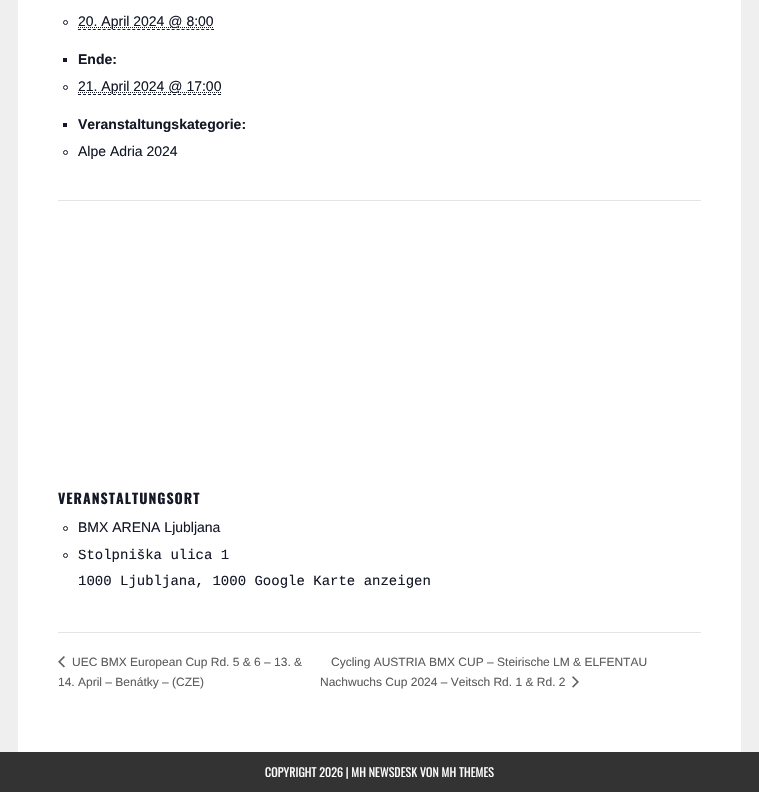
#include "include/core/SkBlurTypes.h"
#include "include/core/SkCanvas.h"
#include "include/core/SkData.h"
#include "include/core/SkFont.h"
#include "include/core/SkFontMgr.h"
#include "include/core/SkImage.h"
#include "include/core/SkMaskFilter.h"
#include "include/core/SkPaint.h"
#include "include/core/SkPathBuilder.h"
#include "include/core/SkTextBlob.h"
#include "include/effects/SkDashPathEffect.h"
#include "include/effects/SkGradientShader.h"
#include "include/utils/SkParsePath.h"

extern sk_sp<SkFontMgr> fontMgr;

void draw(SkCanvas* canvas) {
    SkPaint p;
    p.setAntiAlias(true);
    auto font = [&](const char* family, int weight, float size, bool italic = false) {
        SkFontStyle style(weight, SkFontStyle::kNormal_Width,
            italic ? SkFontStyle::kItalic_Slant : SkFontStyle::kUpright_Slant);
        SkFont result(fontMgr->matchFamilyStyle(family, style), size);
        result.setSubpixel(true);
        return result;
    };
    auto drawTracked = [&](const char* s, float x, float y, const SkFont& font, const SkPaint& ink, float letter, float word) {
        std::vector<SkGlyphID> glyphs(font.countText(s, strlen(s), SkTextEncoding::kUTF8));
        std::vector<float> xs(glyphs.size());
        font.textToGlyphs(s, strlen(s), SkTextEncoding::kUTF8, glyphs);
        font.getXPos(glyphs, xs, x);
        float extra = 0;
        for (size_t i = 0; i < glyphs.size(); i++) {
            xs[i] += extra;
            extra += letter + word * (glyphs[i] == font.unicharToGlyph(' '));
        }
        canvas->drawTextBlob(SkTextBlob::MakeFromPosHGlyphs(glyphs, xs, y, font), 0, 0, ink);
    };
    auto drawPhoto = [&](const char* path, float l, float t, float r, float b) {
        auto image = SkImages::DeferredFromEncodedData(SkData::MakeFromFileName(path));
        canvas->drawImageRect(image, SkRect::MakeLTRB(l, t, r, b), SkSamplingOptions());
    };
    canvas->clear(0xFFEFEFEF);
    p.setColor(0xFFFFFFFF);
    canvas->drawRect(SkRect::MakeLTRB(18, 0, 741, 752), p);
    p.setStyle(SkPaint::kStroke_Style);
    p.setStrokeWidth(1);
    p.setColor(0xFF141827);
    canvas->drawCircle(65.5f, 22.5f, 2, p);
    p.setPathEffect(SkDashPathEffect::Make({{1, 1}}, 0));
    canvas->drawPath(SkPathBuilder().moveTo(78, 27.5f).lineTo(213.5f, 27.5f).detach(), p);
    p.setPathEffect(nullptr);
    auto font1 = font("Liberation Sans", 400, 14);
    p.setStyle(SkPaint::kFill_Style);
    canvas->drawString("20. April 2024 @ 8:00", 78, 26, font1, p);
    p.setStyle(SkPaint::kStroke_Style);
    p.setPathEffect(SkDashPathEffect::Make({{3, 1.93f}}, 0));
    canvas->drawPath(SkPathBuilder().moveTo(78, 29.5f).lineTo(214, 29.5f).detach(), p);
    p.setPathEffect(nullptr);
    p.setStyle(SkPaint::kFill_Style);
    canvas->drawRect(SkRect::MakeLTRB(63, 58, 67, 62), p);
    auto font2 = font("Liberation Sans", 700, 14);
    canvas->drawString("Ende:", 78, 64, font2, p);
    p.setStyle(SkPaint::kStroke_Style);
    canvas->drawCircle(65.5f, 87.5f, 2, p);
    p.setPathEffect(SkDashPathEffect::Make({{1, 1}}, 0));
    canvas->drawPath(SkPathBuilder().moveTo(78, 92.5f).lineTo(221.5f, 92.5f).detach(), p);
    p.setPathEffect(nullptr);
    p.setStyle(SkPaint::kFill_Style);
    canvas->drawString("21. April 2024 @ 17:00", 78, 91, font1, p);
    p.setStyle(SkPaint::kStroke_Style);
    p.setPathEffect(SkDashPathEffect::Make({{3, 2}}, 0));
    canvas->drawPath(SkPathBuilder().moveTo(78, 94.5f).lineTo(221, 94.5f).detach(), p);
    p.setPathEffect(nullptr);
    p.setStyle(SkPaint::kFill_Style);
    canvas->drawRect(SkRect::MakeLTRB(63, 123, 67, 127), p);
    canvas->drawString("Veranstaltungskategorie:", 78, 129, font2, p);
    p.setStyle(SkPaint::kStroke_Style);
    canvas->drawCircle(65.5f, 152.5f, 2, p);
    p.setStyle(SkPaint::kFill_Style);
    canvas->drawString("Alpe Adria 2024", 78, 156, font1, p);
    p.setColor(0xFFE4E4E4);
    canvas->drawRect(SkRect::MakeLTRB(58, 200, 701, 201), p);
    auto font3 = font("Oswald", 700, 14);
    p.setColor(0xFF141827);
    drawTracked("VERANSTALTUNGSORT", 58, 504, font3, p, 1, 0);
    p.setStyle(SkPaint::kStroke_Style);
    canvas->drawCircle(65.5f, 528.5f, 2, p);
    p.setStyle(SkPaint::kFill_Style);
    canvas->drawString("BMX ARENA Ljubljana", 78, 532, font1, p);
    p.setStyle(SkPaint::kStroke_Style);
    canvas->drawCircle(65.5f, 555.5f, 2, p);
    auto font4 = font("Liberation Mono", 400, 14);
    p.setStyle(SkPaint::kFill_Style);
    canvas->drawString("Stolpniška ulica 1", 78, 559, font4, p);
    canvas->drawString("1000 Ljubljana, 1000 Google Karte anzeigen", 78, 585, font4, p);
    p.setColor(0xFFE4E4E4);
    canvas->drawRect(SkRect::MakeLTRB(58, 632, 701, 633), p);
    drawPhoto("media/1.png", 58, 656, 65, 668);
    auto font5 = font("Liberation Sans", 400, 12);
    p.setColor(0xFF5D5D5D);
    {
        const struct { const char* s; float x, y; } items[] = {
            {"UEC BMX European Cup Rd. 5 & 6 – 13. &", 72, 666},
            {"14. April – Benátky – (CZE)", 58, 686},
            {"Cycling AUSTRIA BMX CUP – Steirische LM & ELFENTAU", 331, 666},
            {"Nachwuchs Cup 2024 – Veitsch Rd. 1 & Rd. 2", 320, 686},
        };
        for (auto [s, x, y] : items) {
            canvas->drawString(s, x, y, font5, p);
        }
    }
    drawPhoto("media/2.png", 572, 676, 579, 688);
    p.setColor(0xFF333333);
    canvas->drawRect(SkRect::MakeLTRB(0, 752, 759, 792), p);
    auto font6 = font("Oswald", 400, 12);
    p.setColor(0xFFFFFFFF);
    canvas->drawString("COPYRIGHT 2026 | MH NEWSDESK VON MH THEMES", 265, 777, font6, p);
}
